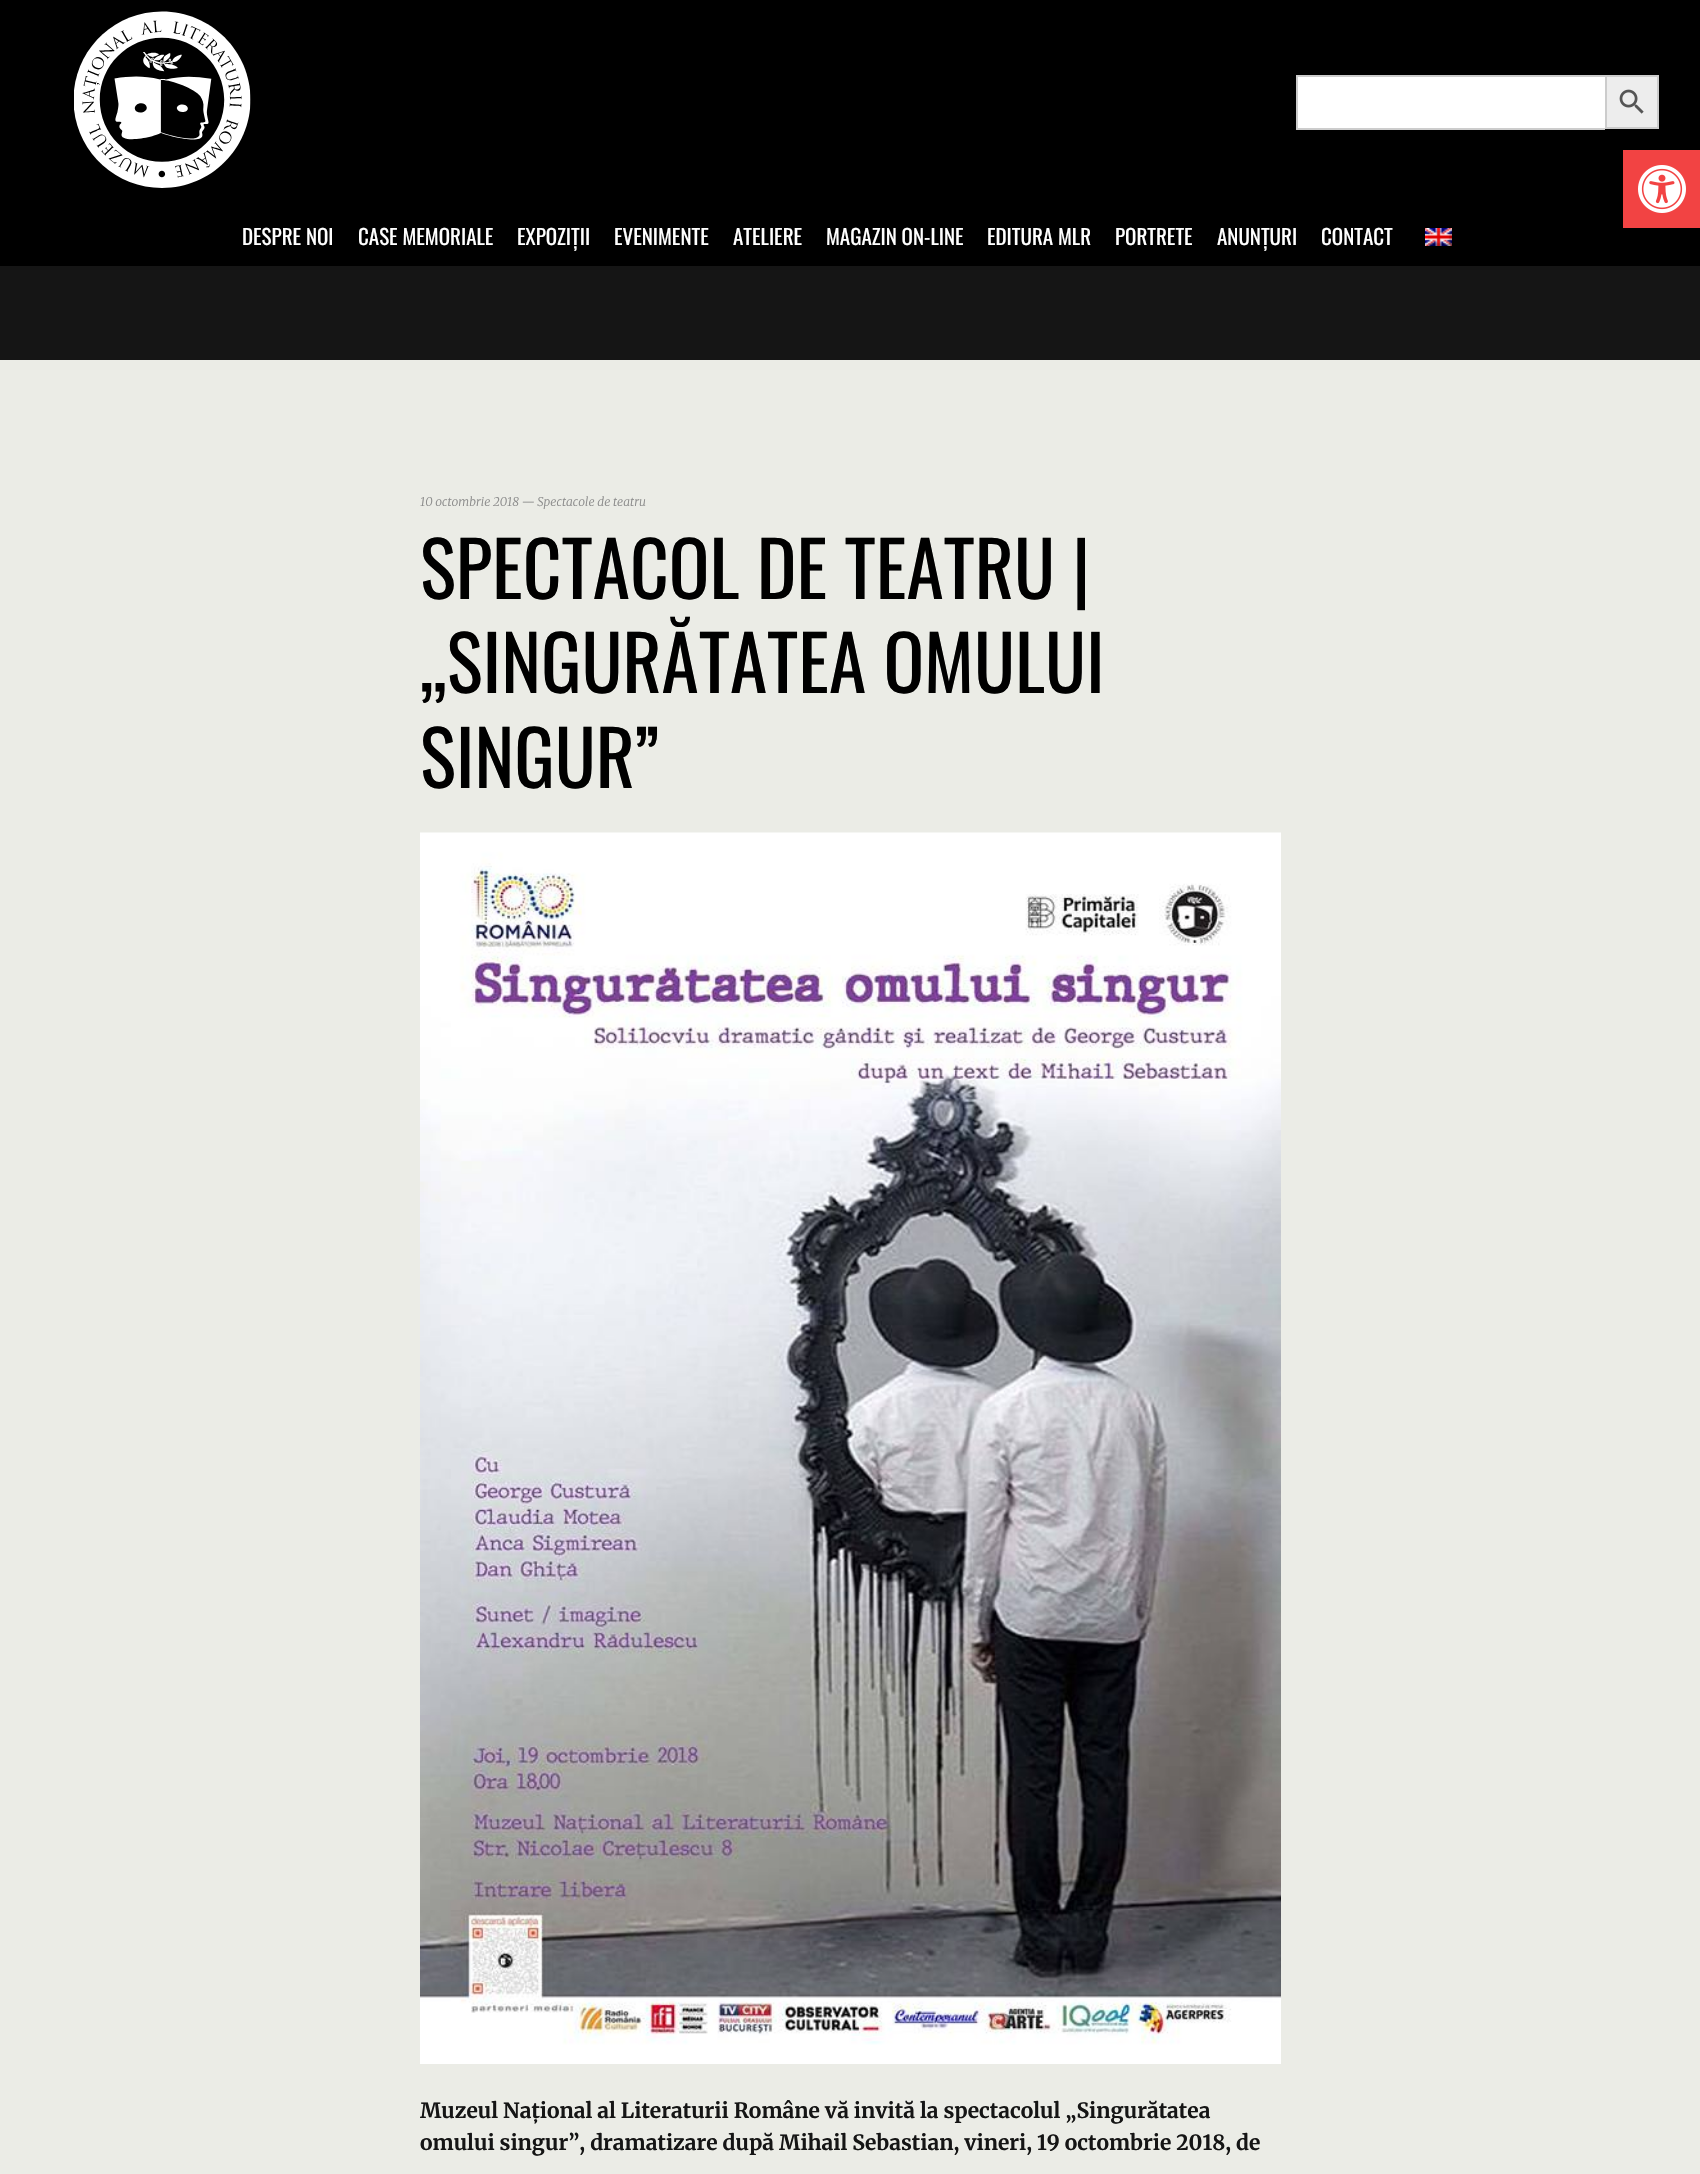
#include "include/core/SkBlurTypes.h"
#include "include/core/SkCanvas.h"
#include "include/core/SkData.h"
#include "include/core/SkFont.h"
#include "include/core/SkFontMgr.h"
#include "include/core/SkImage.h"
#include "include/core/SkMaskFilter.h"
#include "include/core/SkPaint.h"
#include "include/core/SkPathBuilder.h"
#include "include/core/SkTextBlob.h"
#include "include/effects/SkDashPathEffect.h"
#include "include/effects/SkGradientShader.h"
#include "include/utils/SkParsePath.h"

extern sk_sp<SkFontMgr> fontMgr;

void draw(SkCanvas* canvas) {
    SkPaint p;
    p.setAntiAlias(true);
    auto font = [&](const char* family, int weight, float size, bool italic = false) {
        SkFontStyle style(weight, SkFontStyle::kNormal_Width,
            italic ? SkFontStyle::kItalic_Slant : SkFontStyle::kUpright_Slant);
        SkFont result(fontMgr->matchFamilyStyle(family, style), size);
        result.setSubpixel(true);
        return result;
    };
    auto drawPhoto = [&](const char* path, float l, float t, float r, float b) {
        auto image = SkImages::DeferredFromEncodedData(SkData::MakeFromFileName(path));
        canvas->drawImageRect(image, SkRect::MakeLTRB(l, t, r, b), SkSamplingOptions());
    };
    canvas->clear(0xFF151515);
    p.setColor(0xFF000000);
    canvas->drawRect(SkRect::MakeLTRB(0, 0, 1700, 266), p);
    drawPhoto("media/1.png", 74, 11, 251, 188);
    p.setColor(0xFFF24343);
    canvas->drawRect(SkRect::MakeLTRB(1623, 150, 1700, 228), p);
    drawPhoto("media/2.png", 1638, 165, 1686, 213);
    {
        const struct { float l, t, r, b; SkColor color; } items[] = {
            {1298, 77, 1605, 128, 0xFFFFFFFF},
            {1296, 75, 1605, 77, 0xFFCCCCCC},
            {1296, 128, 1605, 130, 0xFFCCCCCC},
            {1296, 75, 1298, 129, 0xFFCCCCCC},
        };
        for (auto [l, t, r, b, color] : items) {
            p.setColor(color);
            canvas->drawRect(SkRect::MakeLTRB(l, t, r, b), p);
        }
    }
    p.setColor(0xFFEDEDED);
    canvas->drawRect(SkRect::MakeLTRB(1606, 76, 1658, 128), p);
    p.setStyle(SkPaint::kStroke_Style);
    p.setStrokeWidth(2);
    p.setColor(0xFFCCCCCC);
    canvas->drawRect(SkRect::MakeLTRB(1606, 76, 1658, 128), p);
    drawPhoto("media/3.png", 1619, 89, 1644, 114);
    auto font1 = font("Oswald", 400, 21);
    p.setStyle(SkPaint::kFill_Style);
    p.setColor(0xFFFFFFFF);
    {
        const struct { const char* s; float x, y; } items[] = {
            {"DESPRE NOI", 242, 245},
            {"CASE MEMORIALE", 358, 245},
            {"EXPOZIȚII", 517, 245},
            {"EVENIMENTE", 614, 245},
            {"ATELIERE", 733, 245},
            {"MAGAZIN ON-LINE", 826, 245},
            {"EDITURA MLR", 987, 245},
            {"PORTRETE", 1115, 245},
            {"ANUNȚURI", 1217, 245},
            {"CONTACT", 1321, 245},
        };
        for (auto [s, x, y] : items) {
            canvas->drawString(s, x, y, font1, p);
        }
    }
    drawPhoto("media/4.png", 1425, 228, 1452, 246);
    p.setColor(0xFFEBECE6);
    canvas->drawRect(SkRect::MakeLTRB(0, 360, 1700, 2174), p);
    auto font2 = font("Merriweather", 300, 12, true);
    p.setColor(0xFF8B8B8B);
    canvas->drawString("10 octombrie 2018 — Spectacole de teatru", 420, 506, font2, p);
    auto font3 = font("Oswald", 400, 75.5f);
    p.setColor(0xFF000000);
    {
        const struct { const char* s; float x, y; } items[] = {
            {"SPECTACOL DE TEATRU |", 420, 599},
            {"„SINGURĂTATEA OMULUI", 420, 693},
            {"SINGUR”", 420, 788},
        };
        for (auto [s, x, y] : items) {
            canvas->drawString(s, x, y, font3, p);
        }
    }
    drawPhoto("media/5.png", 420, 832, 1281, 2064);
    auto font4 = font("Merriweather", 700, 21);
    p.setColor(0xFF151515);
    canvas->drawString("Muzeul Național al Literaturii Române vă invită la spectacolul „Singurătatea", 420, 2118, font4, p);
    canvas->drawString("omului singur”, dramatizare după Mihail Sebastian, vineri, 19 octombrie 2018, de", 420, 2150, font4, p);
}
